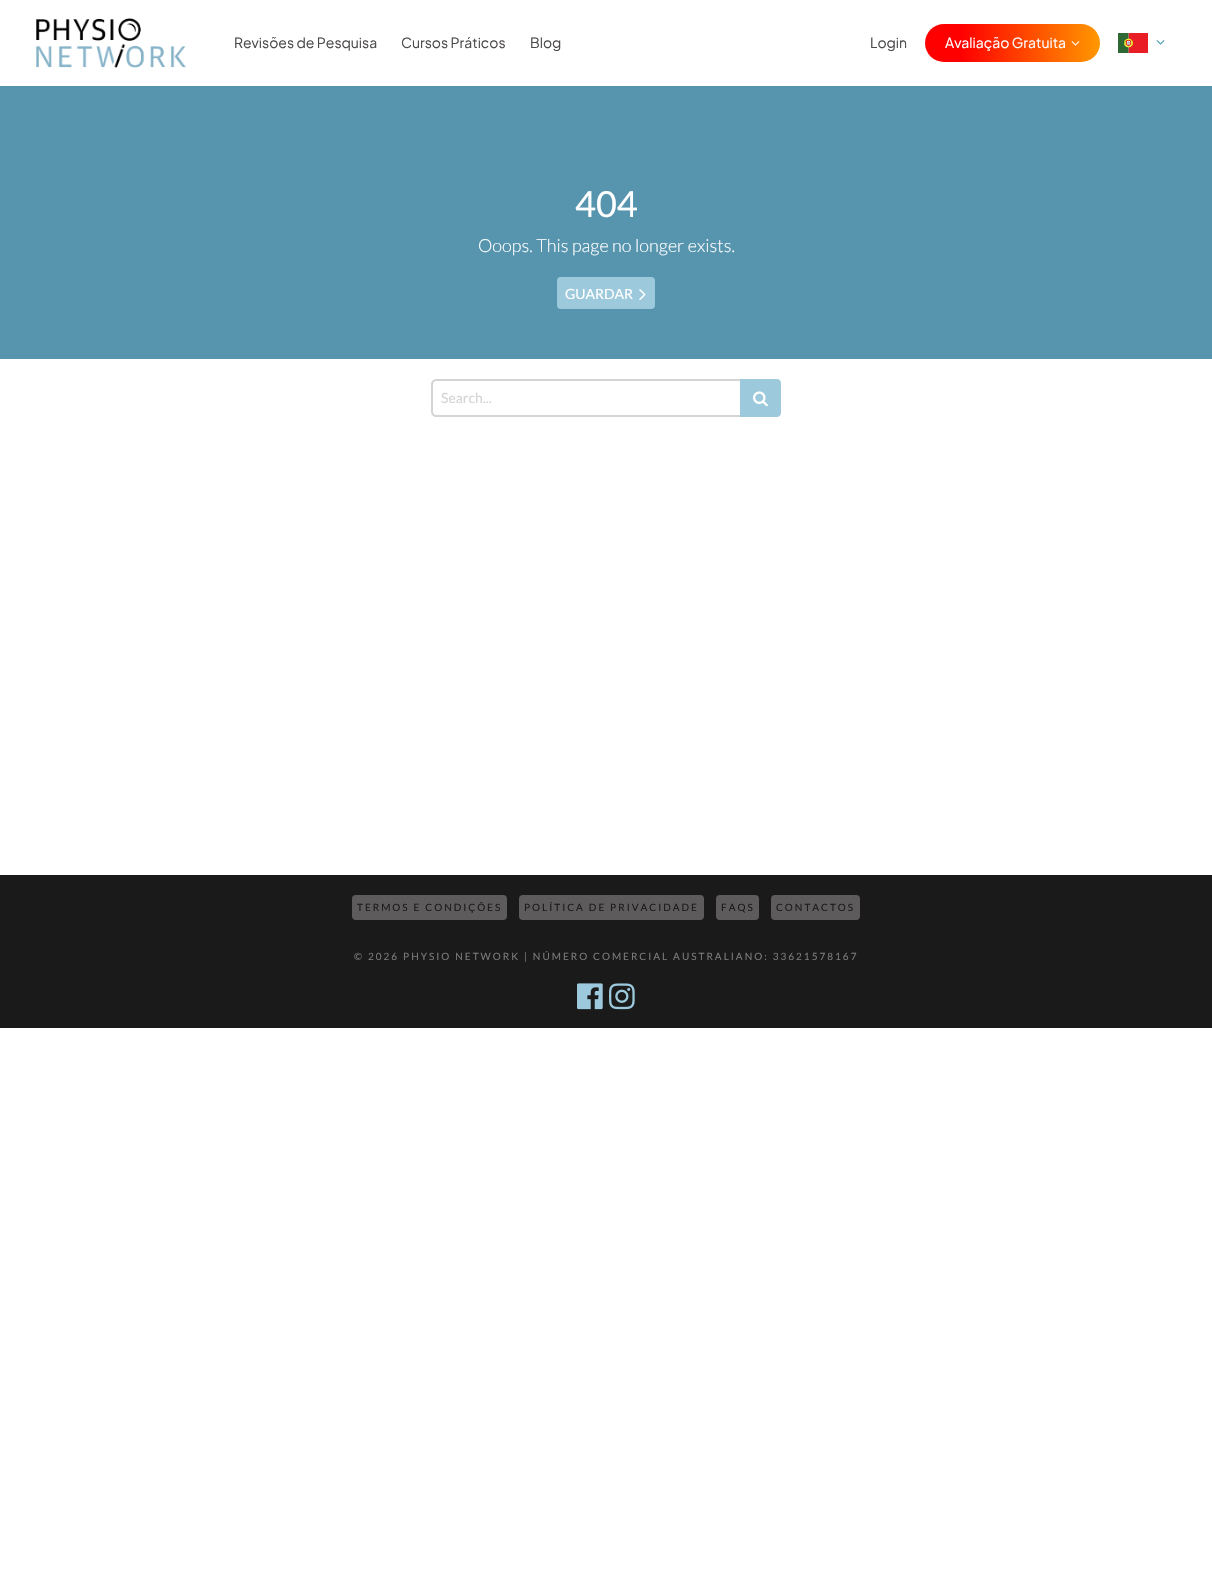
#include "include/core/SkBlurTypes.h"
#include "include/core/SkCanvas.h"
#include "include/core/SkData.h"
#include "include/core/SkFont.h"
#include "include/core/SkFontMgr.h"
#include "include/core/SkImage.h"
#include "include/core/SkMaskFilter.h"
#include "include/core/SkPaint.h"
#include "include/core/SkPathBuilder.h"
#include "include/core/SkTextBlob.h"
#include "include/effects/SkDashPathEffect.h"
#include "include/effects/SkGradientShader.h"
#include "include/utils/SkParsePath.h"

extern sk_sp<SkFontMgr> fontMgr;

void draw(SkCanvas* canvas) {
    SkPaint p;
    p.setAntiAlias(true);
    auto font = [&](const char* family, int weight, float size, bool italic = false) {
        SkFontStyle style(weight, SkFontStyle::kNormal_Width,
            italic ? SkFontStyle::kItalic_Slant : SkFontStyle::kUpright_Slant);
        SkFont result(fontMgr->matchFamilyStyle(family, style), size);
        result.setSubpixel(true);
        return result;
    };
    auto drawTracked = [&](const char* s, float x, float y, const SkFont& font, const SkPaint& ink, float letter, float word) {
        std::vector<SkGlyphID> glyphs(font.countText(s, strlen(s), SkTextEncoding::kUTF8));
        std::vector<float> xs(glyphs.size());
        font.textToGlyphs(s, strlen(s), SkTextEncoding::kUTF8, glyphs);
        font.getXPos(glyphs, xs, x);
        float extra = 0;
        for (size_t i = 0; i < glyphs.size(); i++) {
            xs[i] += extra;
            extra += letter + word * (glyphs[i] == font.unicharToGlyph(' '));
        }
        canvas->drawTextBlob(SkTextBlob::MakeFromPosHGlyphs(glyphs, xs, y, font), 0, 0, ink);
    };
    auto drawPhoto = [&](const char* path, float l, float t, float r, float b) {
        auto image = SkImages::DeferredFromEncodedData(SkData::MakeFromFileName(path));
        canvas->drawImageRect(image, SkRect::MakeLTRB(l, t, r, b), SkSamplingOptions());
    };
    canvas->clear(0xFFFFFFFF);
    drawPhoto("media/1.png", 36, 18, 186, 68);
    auto font1 = font("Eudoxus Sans", 400, 14);
    p.setColor(0xFF4C4949);
    {
        const struct { const char* s; float x, y; } items[] = {
            {"Revisões de Pesquisa", 234, 48},
            {"Cursos Práticos", 401, 48},
            {"Blog", 530, 48},
            {"Login", 870, 48},
        };
        for (auto [s, x, y] : items) {
            canvas->drawString(s, x, y, font1, p);
        }
    }
    {
        const SkColor colors[] = {0xFFFF0000, 0xFFFF9800};
        const float stops[] = {0.21f, 1};
        const SkPoint ends[] = {{925, 43}, {1100, 43}};
        p.setShader(SkGradientShader::MakeLinear(ends, colors, stops, 2, SkTileMode::kClamp));
        p.setAlpha(255);
    }
    canvas->drawRoundRect(SkRect::MakeLTRB(925, 24, 1100, 62), 19, 19, p);
    p.setShader(nullptr);
    p.setColor(0xFFFFFFFF);
    canvas->drawString("Avaliação Gratuita", 945, 48, font1, p);
    drawPhoto("media/2.png", 1071, 41, 1080, 46);
    drawPhoto("media/3.png", 1118, 33, 1148, 53);
    drawPhoto("media/4.png", 1156, 40, 1165, 45);
    p.setColor(0xFF5795AF);
    canvas->drawRect(SkRect::MakeLTRB(0, 86, 1212, 359), p);
    auto font2 = font("Lato", 400, 36);
    p.setColor(0xFFFFFFFF);
    canvas->drawString("404", 575, 217, font2, p);
    auto font3 = font("Lato", 300, 18);
    canvas->drawString("Ooops. This page no longer exists.", 478, 252, font3, p);
    p.setColor(0xFF9CC9DC);
    canvas->drawRoundRect(SkRect::MakeLTRB(557, 277, 655, 309), 4, 4, p);
    auto font4 = font("Lato", 400, 14);
    p.setColor(0xFFFFFFFF);
    canvas->drawString("GUARDAR", 565, 299, font4, p);
    drawPhoto("media/5.png", 639, 289, 646, 300);
    p.setStyle(SkPaint::kStroke_Style);
    p.setStrokeWidth(2);
    p.setColor(0xFFD4D4D4);
    canvas->drawPath(SkPathBuilder().moveTo(436, 380).lineTo(741, 380).lineTo(741, 416).lineTo(436, 416).cubicTo(434, 416, 432, 414, 432, 412).lineTo(432, 384).cubicTo(432, 382, 434, 380, 436, 380).close().detach(), p);
    p.setStyle(SkPaint::kFill_Style);
    canvas->drawString("Search...", 441, 403, font4, p);
    p.setColor(0xFF9CC9DC);
    canvas->drawPath(SkPathBuilder().moveTo(740, 379).lineTo(777, 379).cubicTo(779, 379, 781, 381, 781, 383).lineTo(781, 413).cubicTo(781, 415, 779, 417, 777, 417).lineTo(740, 417).close().detach(), p);
    drawPhoto("media/6.png", 753, 391, 768, 407);
    p.setColor(0xFF1A1A1A);
    canvas->drawRect(SkRect::MakeLTRB(0, 875, 1212, 1028), p);
    p.setColor(0xFF5D5B5B);
    canvas->drawRoundRect(SkRect::MakeLTRB(352, 895, 507, 920), 4, 4, p);
    auto font5 = font("Lato", 400, 10);
    p.setColor(0xFF1A1A1A);
    drawTracked("TERMOS E CONDIÇÕES", 357, 911, font5, p, 2, 0);
    p.setColor(0xFF5D5B5B);
    canvas->drawRoundRect(SkRect::MakeLTRB(519, 895, 704, 920), 4, 4, p);
    p.setColor(0xFF1A1A1A);
    drawTracked("POLÍTICA DE PRIVACIDADE", 524, 911, font5, p, 2, 0);
    p.setColor(0xFF5D5B5B);
    canvas->drawRoundRect(SkRect::MakeLTRB(716, 895, 759, 920), 4, 4, p);
    p.setColor(0xFF1A1A1A);
    drawTracked("FAQS", 721, 911, font5, p, 2, 0);
    p.setColor(0xFF5D5B5B);
    canvas->drawRoundRect(SkRect::MakeLTRB(771, 895, 860, 920), 4, 4, p);
    p.setColor(0xFF1A1A1A);
    drawTracked("CONTACTOS", 776, 911, font5, p, 2, 0);
    p.setColor(0xFF7A7A7A);
    drawTracked("© 2026 PHYSIO NETWORK | NÚMERO COMERCIAL AUSTRALIANO: 33621578167", 354, 960, font5, p, 2, 0);
    drawPhoto("media/7.png", 577, 983, 603, 1010);
    drawPhoto("media/8.png", 609, 983, 635, 1010);
}
